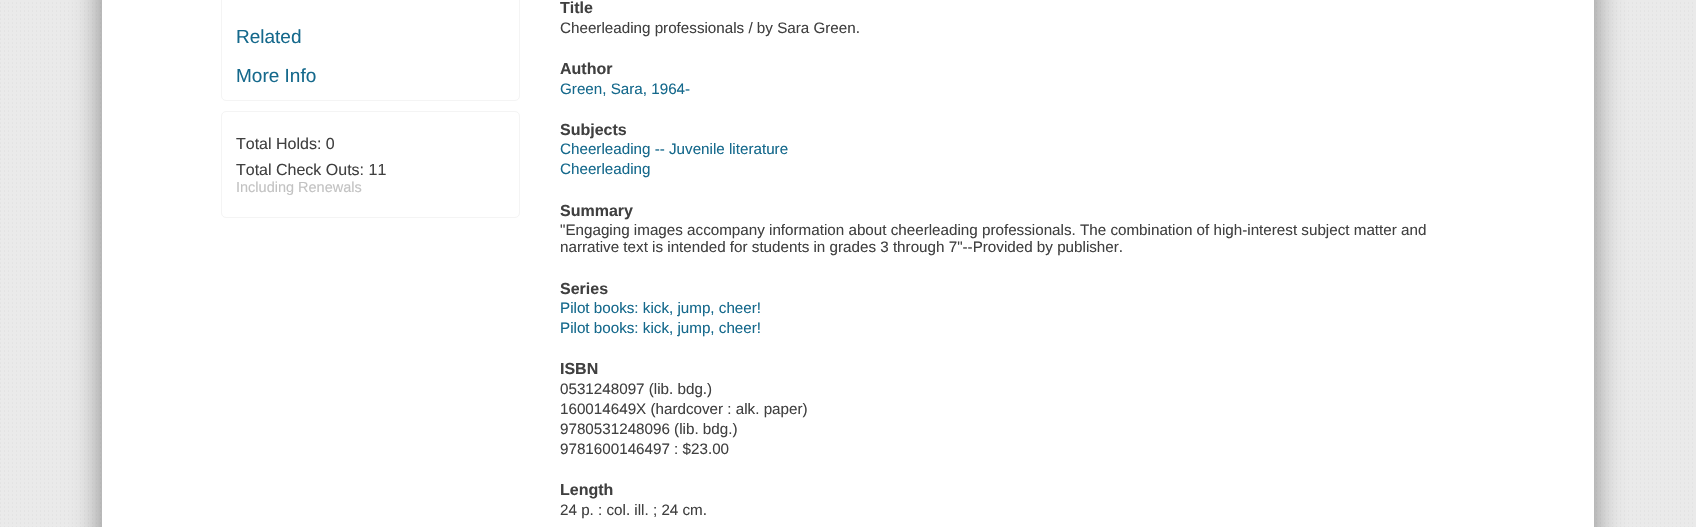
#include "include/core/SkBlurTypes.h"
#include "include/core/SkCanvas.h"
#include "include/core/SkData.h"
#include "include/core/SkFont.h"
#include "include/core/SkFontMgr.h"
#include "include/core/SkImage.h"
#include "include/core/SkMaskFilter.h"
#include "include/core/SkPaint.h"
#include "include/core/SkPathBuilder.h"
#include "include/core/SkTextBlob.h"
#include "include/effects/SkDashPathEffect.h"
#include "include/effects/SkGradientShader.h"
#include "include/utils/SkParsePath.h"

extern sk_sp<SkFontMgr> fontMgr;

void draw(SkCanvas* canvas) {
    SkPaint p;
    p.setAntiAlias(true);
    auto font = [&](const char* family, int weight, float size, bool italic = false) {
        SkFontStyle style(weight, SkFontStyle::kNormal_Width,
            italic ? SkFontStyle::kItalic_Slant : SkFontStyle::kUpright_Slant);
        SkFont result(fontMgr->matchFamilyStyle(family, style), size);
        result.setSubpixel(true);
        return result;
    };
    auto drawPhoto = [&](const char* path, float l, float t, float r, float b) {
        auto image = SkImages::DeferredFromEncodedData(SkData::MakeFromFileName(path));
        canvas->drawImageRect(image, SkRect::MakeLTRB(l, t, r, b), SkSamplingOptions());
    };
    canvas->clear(0xFFEAEAEA);
    drawPhoto("media/1.png", 0, 2, 1693, 527);
    p.setColor(0xB3555555);
    p.setMaskFilter(SkMaskFilter::MakeBlur(kNormal_SkBlurStyle, 15));
    canvas->drawRoundRect(SkRect::MakeLTRB(102, -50, 1594, 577), 5, 5, p);
    p.setMaskFilter(nullptr);
    p.setColor(0xFFFFFFFF);
    canvas->drawRect(SkRect::MakeLTRB(102, 0, 1594, 527), p);
    p.setStyle(SkPaint::kStroke_Style);
    p.setStrokeWidth(1);
    p.setColor(0xFFF4F4F4);
    canvas->drawRoundRect(SkRect::MakeLTRB(221.5f, -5.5f, 519.5f, 100.5f), 4.5f, 4.5f, p);
    auto font1 = font("Liberation Sans", 400, 19);
    p.setStyle(SkPaint::kFill_Style);
    p.setColor(0xFF15698C);
    canvas->drawString("Related", 236, 43, font1, p);
    canvas->drawString("More Info", 236, 82, font1, p);
    p.setStyle(SkPaint::kStroke_Style);
    p.setColor(0xFFF4F4F4);
    canvas->drawRoundRect(SkRect::MakeLTRB(221.5f, 111.5f, 519.5f, 217.5f), 4.5f, 4.5f, p);
    auto font2 = font("Liberation Sans", 400, 16);
    p.setStyle(SkPaint::kFill_Style);
    p.setColor(0xFF404040);
    canvas->drawString("Total Holds: 0", 236, 149, font2, p);
    canvas->drawString("Total Check Outs: 11", 236, 175, font2, p);
    auto font3 = font("Liberation Sans", 400, 14.5f);
    p.setColor(0xFFC2C2C2);
    canvas->drawString("Including Renewals", 236, 192, font3, p);
    auto font4 = font("Liberation Sans", 700, 16);
    p.setColor(0xFF404040);
    canvas->drawString("Title", 560, 13, font4, p);
    auto font5 = font("Liberation Sans", 400, 15.2f);
    canvas->drawString("Cheerleading professionals / by Sara Green.", 560, 33, font5, p);
    canvas->drawString("Author", 560, 74, font4, p);
    p.setColor(0xFF15698C);
    canvas->drawString("Green, Sara, 1964-", 560, 94, font5, p);
    p.setColor(0xFF404040);
    canvas->drawString("Subjects", 560, 135, font4, p);
    p.setColor(0xFF15698C);
    canvas->drawString("Cheerleading -- Juvenile literature", 560, 154, font5, p);
    canvas->drawString("Cheerleading", 560, 174, font5, p);
    p.setColor(0xFF404040);
    canvas->drawString("Summary", 560, 216, font4, p);
    canvas->drawString("\"Engaging images accompany information about cheerleading professionals. The combination of high-interest subject matter and", 560, 235, font5, p);
    canvas->drawString("narrative text is intended for students in grades 3 through 7\"--Provided by publisher.", 560, 252, font5, p);
    canvas->drawString("Series", 560, 294, font4, p);
    p.setColor(0xFF15698C);
    canvas->drawString("Pilot books: kick, jump, cheer!", 560, 313, font5, p);
    canvas->drawString("Pilot books: kick, jump, cheer!", 560, 333, font5, p);
    p.setColor(0xFF404040);
    canvas->drawString("ISBN", 560, 374, font4, p);
    {
        const struct { const char* s; float x, y; } items[] = {
            {"0531248097 (lib. bdg.)", 560, 394},
            {"160014649X (hardcover : alk. paper)", 560, 414},
            {"9780531248096 (lib. bdg.)", 560, 434},
            {"9781600146497 : $23.00", 560, 454},
        };
        for (auto [s, x, y] : items) {
            canvas->drawString(s, x, y, font5, p);
        }
    }
    canvas->drawString("Length", 560, 495, font4, p);
    canvas->drawString("24 p. : col. ill. ; 24 cm.", 560, 515, font5, p);
}
